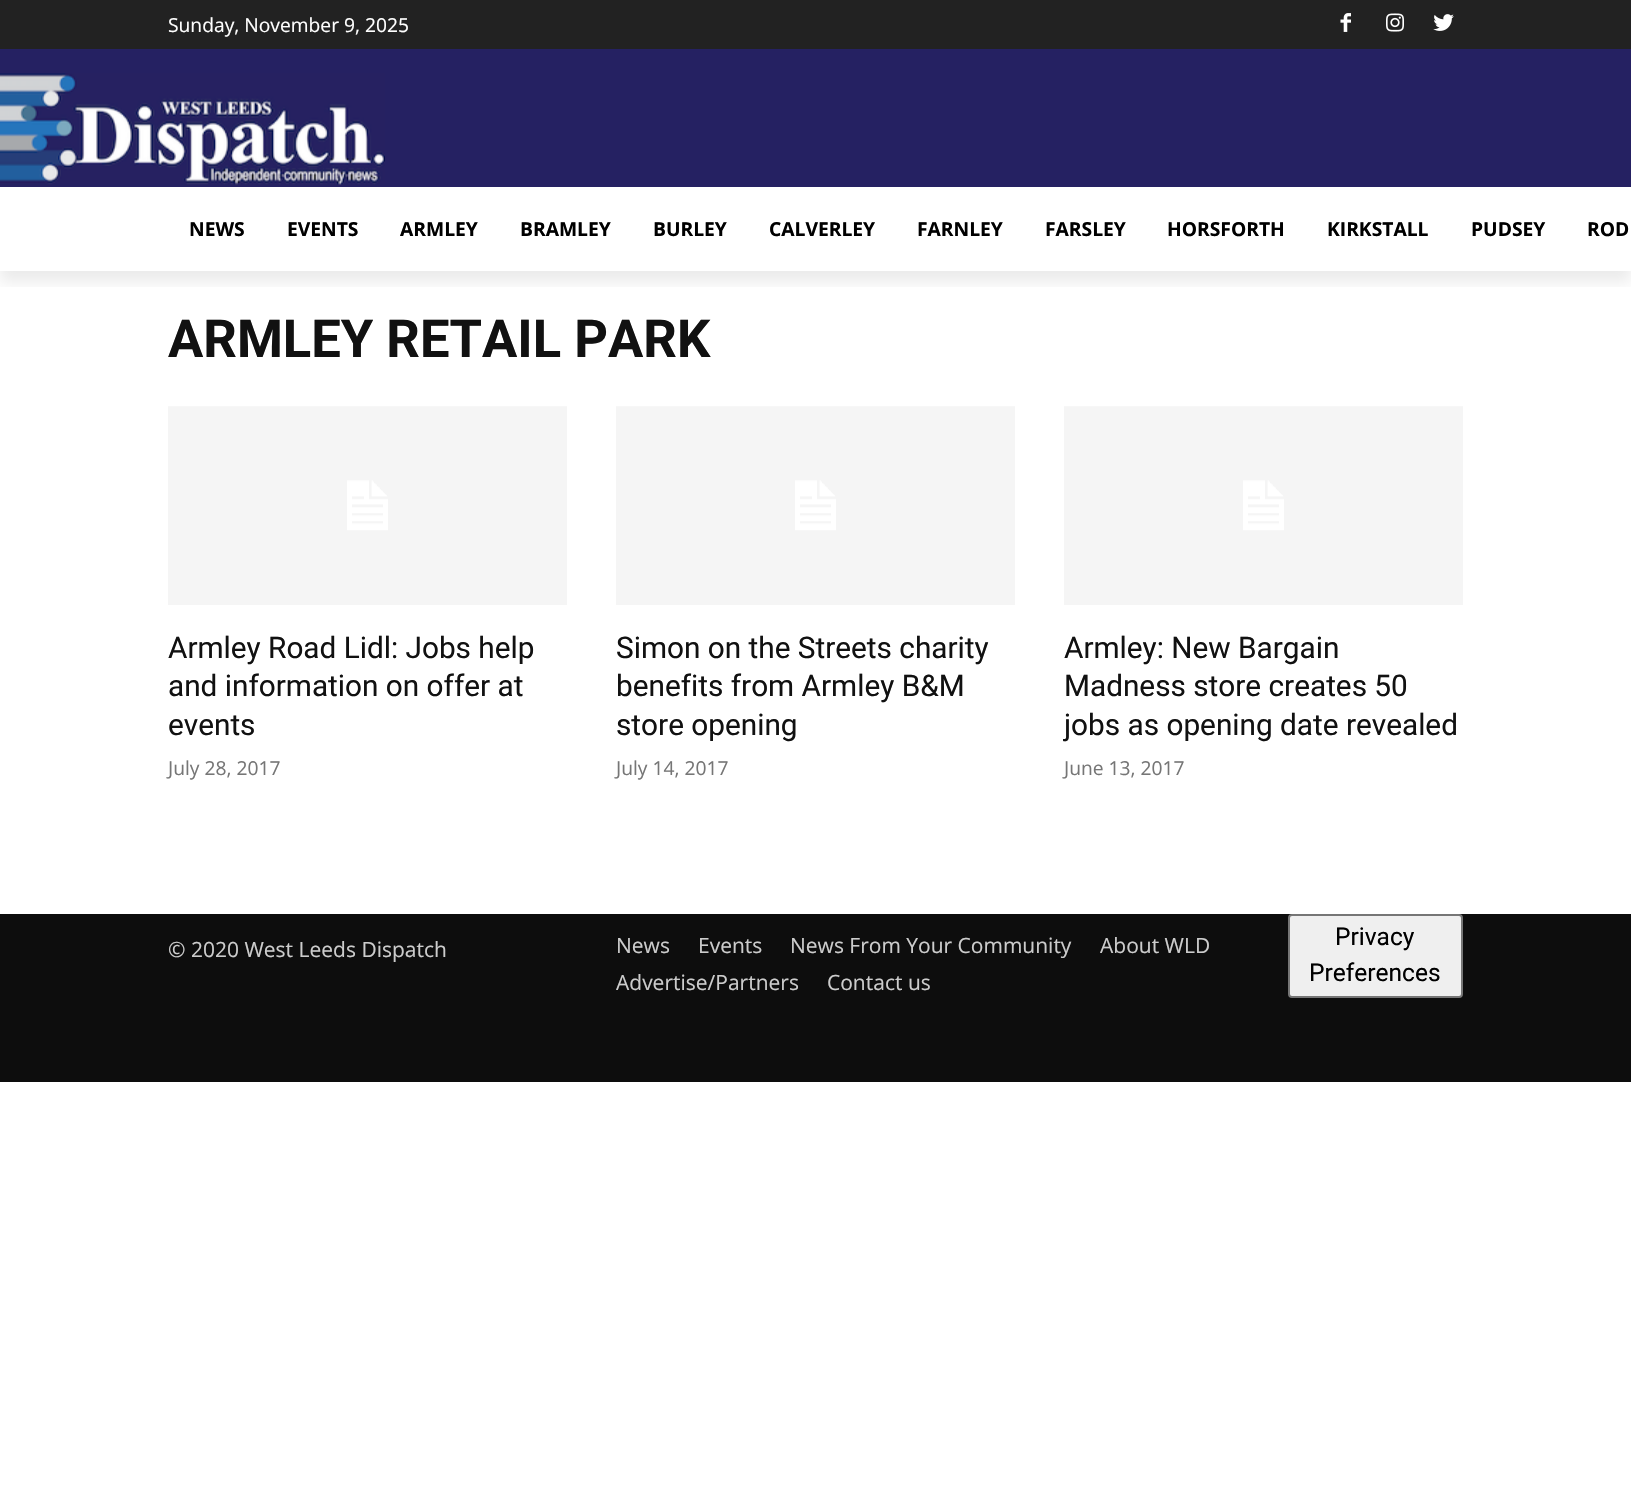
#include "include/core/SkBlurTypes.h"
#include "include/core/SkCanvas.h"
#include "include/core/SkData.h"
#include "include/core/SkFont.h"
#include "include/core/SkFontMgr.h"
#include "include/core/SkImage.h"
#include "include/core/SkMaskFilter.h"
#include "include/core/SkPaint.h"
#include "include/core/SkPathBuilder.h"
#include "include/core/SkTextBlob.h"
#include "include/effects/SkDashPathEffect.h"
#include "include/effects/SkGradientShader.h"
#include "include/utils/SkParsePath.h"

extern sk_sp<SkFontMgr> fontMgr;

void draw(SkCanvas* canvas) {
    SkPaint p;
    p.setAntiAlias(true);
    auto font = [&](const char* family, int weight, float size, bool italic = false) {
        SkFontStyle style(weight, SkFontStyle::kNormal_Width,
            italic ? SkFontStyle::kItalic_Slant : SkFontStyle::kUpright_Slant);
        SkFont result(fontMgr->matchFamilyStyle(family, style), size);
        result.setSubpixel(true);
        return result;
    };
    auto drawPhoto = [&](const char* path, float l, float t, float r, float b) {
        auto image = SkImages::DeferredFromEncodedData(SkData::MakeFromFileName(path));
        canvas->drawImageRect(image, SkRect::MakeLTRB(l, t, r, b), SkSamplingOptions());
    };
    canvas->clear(0xFFFFFFFF);
    p.setColor(0xFF252162);
    canvas->drawRect(SkRect::MakeLTRB(0, 49, 1631, 187), p);
    drawPhoto("media/4.png", 0, 73, 385, 185);
    canvas->save();
    canvas->clipRect(SkRect::MakeLTRB(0, 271, 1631, 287));
    p.setColor(0x14000000);
    p.setMaskFilter(SkMaskFilter::MakeBlur(kNormal_SkBlurStyle, 7));
    canvas->drawRect(SkRect::MakeLTRB(0, 11, 1631, 282), p);
    p.setMaskFilter(nullptr);
    canvas->restore();
    p.setColor(0xFF222222);
    canvas->drawRect(SkRect::MakeLTRB(0, 0, 1631, 49), p);
    auto font1 = font("Open Sans", 400, 19.25f);
    p.setColor(0xFFFFFFFF);
    canvas->drawString("Sunday, November 9, 2025", 168, 32, font1, p);
    drawPhoto("media/1.png", 1340, 13, 1351, 32);
    drawPhoto("media/2.png", 1386, 13, 1404, 32);
    drawPhoto("media/3.png", 1433, 14, 1454, 31);
    auto font2 = font("Open Sans", 700, 19.25f);
    p.setColor(0xFF000000);
    {
        const struct { const char* s; float x, y; } items[] = {
            {"NEWS", 189, 236},
            {"EVENTS", 287, 236},
            {"ARMLEY", 400, 236},
            {"BRAMLEY", 520, 236},
            {"BURLEY", 653, 236},
            {"CALVERLEY", 769, 236},
            {"FARNLEY", 917, 236},
            {"FARSLEY", 1045, 236},
            {"HORSFORTH", 1167, 236},
            {"KIRKSTALL", 1327, 236},
            {"PUDSEY", 1471, 236},
            {"ROD", 1587, 236},
        };
        for (auto [s, x, y] : items) {
            canvas->drawString(s, x, y, font2, p);
        }
    }
    auto font3 = font("Roboto", 700, 52.5f);
    p.setColor(0xFF111111);
    canvas->drawString("ARMLEY RETAIL PARK", 168, 357, font3, p);
    drawPhoto("media/5.png", 168, 406, 567, 605);
    auto font4 = font("Roboto", 400, 29.75f);
    {
        const struct { const char* s; float x, y; } items[] = {
            {"Armley Road Lidl: Jobs help", 168, 658},
            {"and information on offer at", 168, 696},
            {"events", 168, 735},
        };
        for (auto [s, x, y] : items) {
            canvas->drawString(s, x, y, font4, p);
        }
    }
    p.setColor(0xFF767676);
    canvas->drawString("July 28, 2017", 168, 775, font1, p);
    drawPhoto("media/5.png", 616, 406, 1015, 605);
    p.setColor(0xFF111111);
    {
        const struct { const char* s; float x, y; } items[] = {
            {"Simon on the Streets charity", 616, 658},
            {"benefits from Armley B&M", 616, 696},
            {"store opening", 616, 735},
        };
        for (auto [s, x, y] : items) {
            canvas->drawString(s, x, y, font4, p);
        }
    }
    p.setColor(0xFF767676);
    canvas->drawString("July 14, 2017", 616, 775, font1, p);
    drawPhoto("media/5.png", 1064, 406, 1463, 605);
    p.setColor(0xFF111111);
    {
        const struct { const char* s; float x, y; } items[] = {
            {"Armley: New Bargain", 1064, 658},
            {"Madness store creates 50", 1064, 696},
            {"jobs as opening date revealed", 1064, 735},
        };
        for (auto [s, x, y] : items) {
            canvas->drawString(s, x, y, font4, p);
        }
    }
    p.setColor(0xFF767676);
    canvas->drawString("June 13, 2017", 1064, 775, font1, p);
    p.setColor(0xFF0D0D0D);
    canvas->drawRect(SkRect::MakeLTRB(0, 914, 1631, 1082), p);
    auto font5 = font("Open Sans", 400, 21);
    p.setColor(0xFFCCCCCC);
    {
        const struct { const char* s; float x, y; } items[] = {
            {"© 2020 West Leeds Dispatch", 168, 957},
            {"News", 616, 953},
            {"Events", 698, 953},
            {"News From Your Community", 790, 953},
            {"About WLD", 1100, 953},
            {"Advertise/Partners", 616, 990},
            {"Contact us", 827, 990},
        };
        for (auto [s, x, y] : items) {
            canvas->drawString(s, x, y, font5, p);
        }
    }
    p.setColor(0xFFEFEFEF);
    canvas->drawRoundRect(SkRect::MakeLTRB(1289, 915, 1462, 997), 3, 3, p);
    p.setStyle(SkPaint::kStroke_Style);
    p.setStrokeWidth(2);
    p.setColor(0xFF767676);
    canvas->drawRoundRect(SkRect::MakeLTRB(1289, 915, 1462, 997), 3, 3, p);
    auto font6 = font("Roboto", 400, 24.5f);
    p.setStyle(SkPaint::kFill_Style);
    p.setColor(0xFF000000);
    canvas->drawString("Privacy", 1335, 945, font6, p);
    canvas->drawString("Preferences", 1309, 981, font6, p);
}
